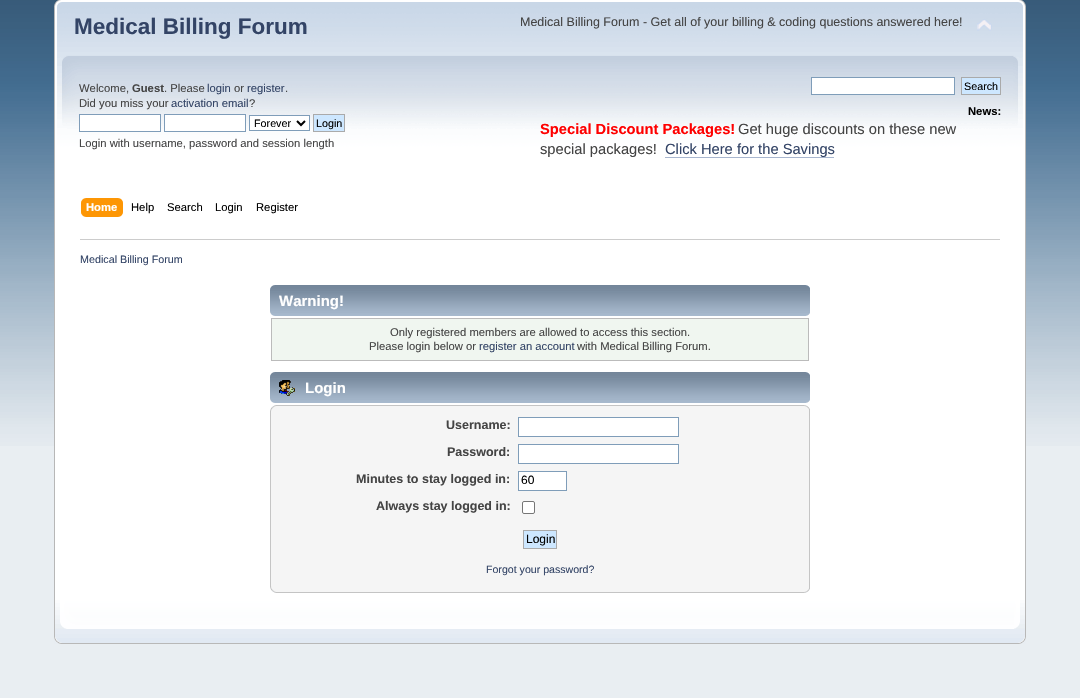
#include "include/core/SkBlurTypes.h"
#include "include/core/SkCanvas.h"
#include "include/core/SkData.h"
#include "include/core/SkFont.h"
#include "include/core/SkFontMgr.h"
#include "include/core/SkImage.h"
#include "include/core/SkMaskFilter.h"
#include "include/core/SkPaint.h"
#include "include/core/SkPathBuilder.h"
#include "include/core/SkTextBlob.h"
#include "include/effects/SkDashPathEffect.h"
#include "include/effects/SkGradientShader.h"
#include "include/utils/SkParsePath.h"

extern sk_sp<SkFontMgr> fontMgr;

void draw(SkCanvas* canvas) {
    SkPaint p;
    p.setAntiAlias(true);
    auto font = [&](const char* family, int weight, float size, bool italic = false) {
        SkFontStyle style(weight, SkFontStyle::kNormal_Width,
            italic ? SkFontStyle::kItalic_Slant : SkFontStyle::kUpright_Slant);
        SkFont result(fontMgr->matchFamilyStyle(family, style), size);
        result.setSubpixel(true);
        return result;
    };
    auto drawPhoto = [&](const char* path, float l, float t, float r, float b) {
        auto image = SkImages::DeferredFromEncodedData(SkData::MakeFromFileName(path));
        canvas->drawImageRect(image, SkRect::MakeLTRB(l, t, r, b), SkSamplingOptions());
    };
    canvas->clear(0xFFE9EEF2);
    drawPhoto("media/1.png", 0, 0, 1080, 446);
    drawPhoto("media/2.png", 54, 0, 1013, 232);
    drawPhoto("media/3.png", 1013, 0, 1026, 232);
    auto font1 = font("Liberation Sans", 700, 22.5f);
    p.setColor(0xFF334466);
    canvas->drawString("Medical Billing Forum", 74, 34, font1, p);
    auto font2 = font("Liberation Sans", 400, 12.5f);
    p.setColor(0xFF444444);
    canvas->drawString("Medical Billing Forum - Get all of your billing & coding questions answered here!", 520, 26, font2, p);
    drawPhoto("media/4.png", 977, 19, 992, 31);
    auto font3 = font("Liberation Sans", 400, 11.25f);
    canvas->drawString("Welcome,", 79, 92, font3, p);
    auto font4 = font("Liberation Sans", 700, 11.25f);
    canvas->drawString("Guest", 132, 92, font4, p);
    canvas->drawString(". Please", 164, 92, font3, p);
    p.setColor(0xFF334466);
    canvas->drawString("login", 207, 92, font3, p);
    p.setColor(0xFF444444);
    canvas->drawString("or", 234, 92, font3, p);
    p.setColor(0xFF334466);
    canvas->drawString("register", 247, 92, font3, p);
    p.setColor(0xFF444444);
    canvas->drawString(".", 285, 92, font3, p);
    canvas->drawString("Did you miss your", 79, 107, font3, p);
    p.setColor(0xFF334466);
    canvas->drawString("activation email", 171, 107, font3, p);
    p.setColor(0xFF444444);
    canvas->drawString("?", 249, 107, font3, p);
    p.setColor(0xFFFFFFFF);
    canvas->drawRect(SkRect::MakeLTRB(79.5f, 114.5f, 160.5f, 131.5f), p);
    p.setStyle(SkPaint::kStroke_Style);
    p.setStrokeWidth(1);
    p.setColor(0xFF7F9DB9);
    canvas->drawRect(SkRect::MakeLTRB(79.5f, 114.5f, 160.5f, 131.5f), p);
    p.setStyle(SkPaint::kFill_Style);
    p.setColor(0xFFFFFFFF);
    canvas->drawRect(SkRect::MakeLTRB(164.5f, 114.5f, 245.5f, 131.5f), p);
    p.setStyle(SkPaint::kStroke_Style);
    p.setColor(0xFF7F9DB9);
    canvas->drawRect(SkRect::MakeLTRB(164.5f, 114.5f, 245.5f, 131.5f), p);
    p.setStyle(SkPaint::kFill_Style);
    p.setColor(0xFFFFFFFF);
    canvas->drawRect(SkRect::MakeLTRB(249.5f, 115.5f, 309.5f, 130.5f), p);
    p.setStyle(SkPaint::kStroke_Style);
    p.setColor(0xFF7F9DB9);
    canvas->drawRect(SkRect::MakeLTRB(249.5f, 115.5f, 309.5f, 130.5f), p);
    p.setStrokeWidth(2);
    p.setColor(0xFF000000);
    canvas->drawPath(SkPathBuilder().moveTo(297, 121).lineTo(301, 125).lineTo(305, 121).detach(), p);
    auto font5 = font("Liberation Sans", 400, 10.75f);
    p.setStyle(SkPaint::kFill_Style);
    canvas->drawString("Forever", 254, 127, font5, p);
    p.setColor(0xFFCDE7FF);
    canvas->drawRect(SkRect::MakeLTRB(313.5f, 114.5f, 344.5f, 131.5f), p);
    p.setStyle(SkPaint::kStroke_Style);
    p.setStrokeWidth(1);
    p.setColor(0xFFAAAAAA);
    canvas->drawRect(SkRect::MakeLTRB(313.5f, 114.5f, 344.5f, 131.5f), p);
    p.setStyle(SkPaint::kFill_Style);
    p.setColor(0xFF000000);
    canvas->drawString("Login", 316, 127, font5, p);
    p.setColor(0xFF444444);
    canvas->drawString("Login with username, password and session length", 79, 147, font3, p);
    p.setColor(0xFFFFFFFF);
    canvas->drawRect(SkRect::MakeLTRB(811.5f, 77.5f, 954.5f, 94.5f), p);
    p.setStyle(SkPaint::kStroke_Style);
    p.setColor(0xFF7F9DB9);
    canvas->drawRect(SkRect::MakeLTRB(811.5f, 77.5f, 954.5f, 94.5f), p);
    p.setStyle(SkPaint::kFill_Style);
    p.setColor(0xFFCDE7FF);
    canvas->drawRect(SkRect::MakeLTRB(961.5f, 77.5f, 1000.5f, 94.5f), p);
    p.setStyle(SkPaint::kStroke_Style);
    p.setColor(0xFFAAAAAA);
    canvas->drawRect(SkRect::MakeLTRB(961.5f, 77.5f, 1000.5f, 94.5f), p);
    p.setStyle(SkPaint::kFill_Style);
    p.setColor(0xFF000000);
    canvas->drawString("Search", 964, 90, font5, p);
    canvas->drawString("News:", 968, 115, font4, p);
    auto font6 = font("Liberation Sans", 700, 14.7f);
    p.setColor(0xFFFF0000);
    canvas->drawString("Special Discount Packages!", 540, 134, font6, p);
    auto font7 = font("Liberation Sans", 400, 14.7f);
    p.setColor(0xFF444444);
    canvas->drawString("Get huge discounts on these new", 738, 134, font7, p);
    canvas->drawString("special packages!", 540, 154, font7, p);
    p.setColor(0xFFA8B6CF);
    canvas->drawRect(SkRect::MakeLTRB(665, 157, 834, 158), p);
    p.setColor(0xFF334466);
    canvas->drawString("Click Here for the Savings", 665, 154, font7, p);
    drawPhoto("media/5.png", 86, 198, 123, 217);
    drawPhoto("media/6.png", 81, 198, 86, 217);
    p.setColor(0xFFFFFFFF);
    canvas->drawString("Home", 86, 211, font4, p);
    p.setColor(0xFF000000);
    {
        const struct { const char* s; float x, y; } items[] = {
            {"Help", 131, 211},
            {"Search", 167, 211},
            {"Login", 215, 211},
            {"Register", 256, 211},
        };
        for (auto [s, x, y] : items) {
            canvas->drawString(s, x, y, font3, p);
        }
    }
    {
        const struct { float l, t, r, b; SkColor color; } items[] = {
            {55, 232, 1025, 600, 0xFFFFFFFF},
            {54, 232, 55, 600, 0xFFB7B7B7},
            {1025, 232, 1026, 600, 0xFFB7B7B7},
            {80, 239, 1000, 240, 0xFFCCCCCC},
        };
        for (auto [l, t, r, b, color] : items) {
            p.setColor(color);
            canvas->drawRect(SkRect::MakeLTRB(l, t, r, b), p);
        }
    }
    p.setColor(0xFF334466);
    canvas->drawString("Medical Billing Forum", 80, 263, font5, p);
    drawPhoto("media/7.png", 270, 285, 805, 316);
    drawPhoto("media/8.png", 805, 285, 810, 316);
    auto font8 = font("Liberation Sans", 700, 15);
    p.setColor(0xFFFFFFFF);
    canvas->drawString("Warning!", 279, 306, font8, p);
    p.setColor(0xFFF0F6F0);
    canvas->drawRect(SkRect::MakeLTRB(271.5f, 318.5f, 808.5f, 360.5f), p);
    p.setStyle(SkPaint::kStroke_Style);
    p.setColor(0xFFBBBBBB);
    canvas->drawRect(SkRect::MakeLTRB(271.5f, 318.5f, 808.5f, 360.5f), p);
    p.setStyle(SkPaint::kFill_Style);
    p.setColor(0xFF444444);
    canvas->drawString("Only registered members are allowed to access this section.", 390, 336, font3, p);
    canvas->drawString("Please login below or", 369, 350, font3, p);
    p.setColor(0xFF334466);
    canvas->drawString("register an account", 479, 350, font3, p);
    p.setColor(0xFF444444);
    canvas->drawString("with Medical Billing Forum.", 577, 350, font3, p);
    drawPhoto("media/7.png", 270, 372, 805, 403);
    drawPhoto("media/8.png", 805, 372, 810, 403);
    drawPhoto("media/9.png", 279, 380, 295, 396);
    p.setColor(0xFFFFFFFF);
    canvas->drawString("Login", 305, 393, font8, p);
    drawPhoto("media/10.png", 270, 405, 804, 416);
    drawPhoto("media/11.png", 804, 405, 810, 416);
    {
        const struct { float l, t, r, b; SkColor color; } items[] = {
            {271, 416, 809, 582, 0xFFF5F5F5},
            {809, 416, 810, 582, 0xFFC5C5C5},
            {270, 416, 271, 582, 0xFFC5C5C5},
        };
        for (auto [l, t, r, b, color] : items) {
            p.setColor(color);
            canvas->drawRect(SkRect::MakeLTRB(l, t, r, b), p);
        }
    }
    auto font9 = font("Liberation Sans", 700, 12.5f);
    p.setColor(0xFF444444);
    canvas->drawString("Username:", 446, 429, font9, p);
    p.setColor(0xFFFFFFFF);
    canvas->drawRect(SkRect::MakeLTRB(518.5f, 417.5f, 678.5f, 436.5f), p);
    p.setStyle(SkPaint::kStroke_Style);
    p.setColor(0xFF7F9DB9);
    canvas->drawRect(SkRect::MakeLTRB(518.5f, 417.5f, 678.5f, 436.5f), p);
    p.setStyle(SkPaint::kFill_Style);
    p.setColor(0xFF444444);
    canvas->drawString("Password:", 447, 456, font9, p);
    p.setColor(0xFFFFFFFF);
    canvas->drawRect(SkRect::MakeLTRB(518.5f, 444.5f, 678.5f, 463.5f), p);
    p.setStyle(SkPaint::kStroke_Style);
    p.setColor(0xFF7F9DB9);
    canvas->drawRect(SkRect::MakeLTRB(518.5f, 444.5f, 678.5f, 463.5f), p);
    p.setStyle(SkPaint::kFill_Style);
    p.setColor(0xFF444444);
    canvas->drawString("Minutes to stay logged in:", 356, 483, font9, p);
    p.setColor(0xFFFFFFFF);
    canvas->drawRect(SkRect::MakeLTRB(518.5f, 471.5f, 566.5f, 490.5f), p);
    p.setStyle(SkPaint::kStroke_Style);
    p.setColor(0xFF7F9DB9);
    canvas->drawRect(SkRect::MakeLTRB(518.5f, 471.5f, 566.5f, 490.5f), p);
    auto font10 = font("Liberation Sans", 400, 12);
    p.setStyle(SkPaint::kFill_Style);
    p.setColor(0xFF000000);
    canvas->drawString("60", 521, 484, font10, p);
    p.setColor(0xFF444444);
    canvas->drawString("Always stay logged in:", 376, 510, font9, p);
    p.setColor(0xFFFFFFFF);
    canvas->drawRoundRect(SkRect::MakeLTRB(522.5f, 501.5f, 534.5f, 513.5f), 1.5f, 1.5f, p);
    p.setStyle(SkPaint::kStroke_Style);
    p.setColor(0xFF767676);
    canvas->drawRoundRect(SkRect::MakeLTRB(522.5f, 501.5f, 534.5f, 513.5f), 1.5f, 1.5f, p);
    p.setStyle(SkPaint::kFill_Style);
    p.setColor(0xFFCDE7FF);
    canvas->drawRect(SkRect::MakeLTRB(523.5f, 530.5f, 556.5f, 548.5f), p);
    p.setStyle(SkPaint::kStroke_Style);
    p.setColor(0xFFAAAAAA);
    canvas->drawRect(SkRect::MakeLTRB(523.5f, 530.5f, 556.5f, 548.5f), p);
    p.setStyle(SkPaint::kFill_Style);
    p.setColor(0xFF000000);
    canvas->drawString("Login", 526, 543, font10, p);
    auto font11 = font("Liberation Sans", 400, 10.6f);
    p.setColor(0xFF334466);
    canvas->drawString("Forgot your password?", 486, 573, font11, p);
    drawPhoto("media/12.png", 270, 582, 804, 593);
    drawPhoto("media/13.png", 804, 582, 810, 593);
    drawPhoto("media/14.png", 54, 600, 1014, 644);
    drawPhoto("media/15.png", 1014, 600, 1026, 644);
}
